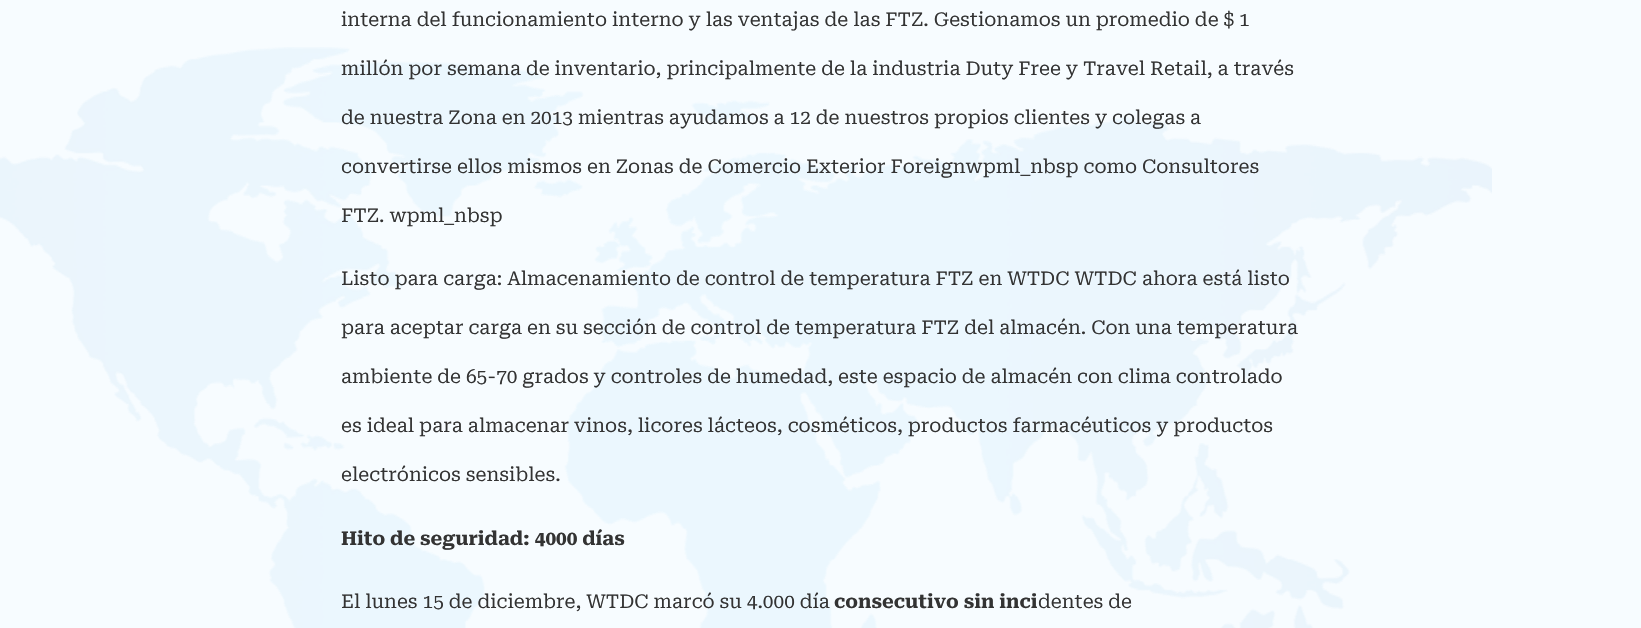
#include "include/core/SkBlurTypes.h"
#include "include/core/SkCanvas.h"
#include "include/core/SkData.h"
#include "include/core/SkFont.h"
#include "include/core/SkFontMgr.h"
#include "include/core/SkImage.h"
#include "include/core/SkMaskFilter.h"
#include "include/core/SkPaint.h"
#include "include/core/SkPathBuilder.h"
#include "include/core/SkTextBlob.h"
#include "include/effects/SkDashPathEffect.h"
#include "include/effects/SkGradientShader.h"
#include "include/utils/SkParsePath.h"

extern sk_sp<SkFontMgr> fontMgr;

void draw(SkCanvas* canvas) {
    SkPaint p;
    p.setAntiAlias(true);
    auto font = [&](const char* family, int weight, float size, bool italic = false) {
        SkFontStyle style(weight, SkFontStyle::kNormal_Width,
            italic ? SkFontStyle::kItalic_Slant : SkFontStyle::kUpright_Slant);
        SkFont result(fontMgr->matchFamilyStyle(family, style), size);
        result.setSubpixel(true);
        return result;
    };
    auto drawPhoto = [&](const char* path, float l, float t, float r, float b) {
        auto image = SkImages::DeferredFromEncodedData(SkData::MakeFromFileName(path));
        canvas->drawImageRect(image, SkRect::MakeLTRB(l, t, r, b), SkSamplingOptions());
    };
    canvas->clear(0xFFF7FCFF);
    auto font1 = font("Roboto Serif", 400, 19);
    p.setColor(0xFF333333);
    canvas->drawString("interna del funcionamiento interno y las ventajas de las FTZ. Gestionamos un promedio de $ 1", 341, 26, font1, p);
    drawPhoto("media/1.png", 0, 47, 1492, 628);
    {
        const struct { const char* s; float x, y; } items[] = {
            {"millón por semana de inventario, principalmente de la industria Duty Free y Travel Retail, a través", 341, 75},
            {"de nuestra Zona en 2013 mientras ayudamos a 12 de nuestros propios clientes y colegas a", 341, 124},
            {"convertirse ellos mismos en Zonas de Comercio Exterior Foreignwpml_nbsp como Consultores", 341, 173},
            {"FTZ. wpml_nbsp", 341, 222},
            {"Listo para carga: Almacenamiento de control de temperatura FTZ en WTDC WTDC ahora está listo", 341, 285},
            {"para aceptar carga en su sección de control de temperatura FTZ del almacén. Con una temperatura", 341, 334},
            {"ambiente de 65-70 grados y controles de humedad, este espacio de almacén con clima controlado", 341, 383},
            {"es ideal para almacenar vinos, licores lácteos, cosméticos, productos farmacéuticos y productos", 341, 432},
            {"electrónicos sensibles.", 341, 481},
        };
        for (auto [s, x, y] : items) {
            canvas->drawString(s, x, y, font1, p);
        }
    }
    auto font2 = font("Roboto Serif", 700, 19);
    canvas->drawString("Hito de seguridad: 4000 días", 341, 545, font2, p);
    canvas->drawString("El lunes 15 de diciembre, WTDC marcó su 4.000 día", 341, 608, font1, p);
    canvas->drawString("consecutivo sin inci", 834, 608, font2, p);
    canvas->drawString("dentes de", 1038, 608, font1, p);
}
